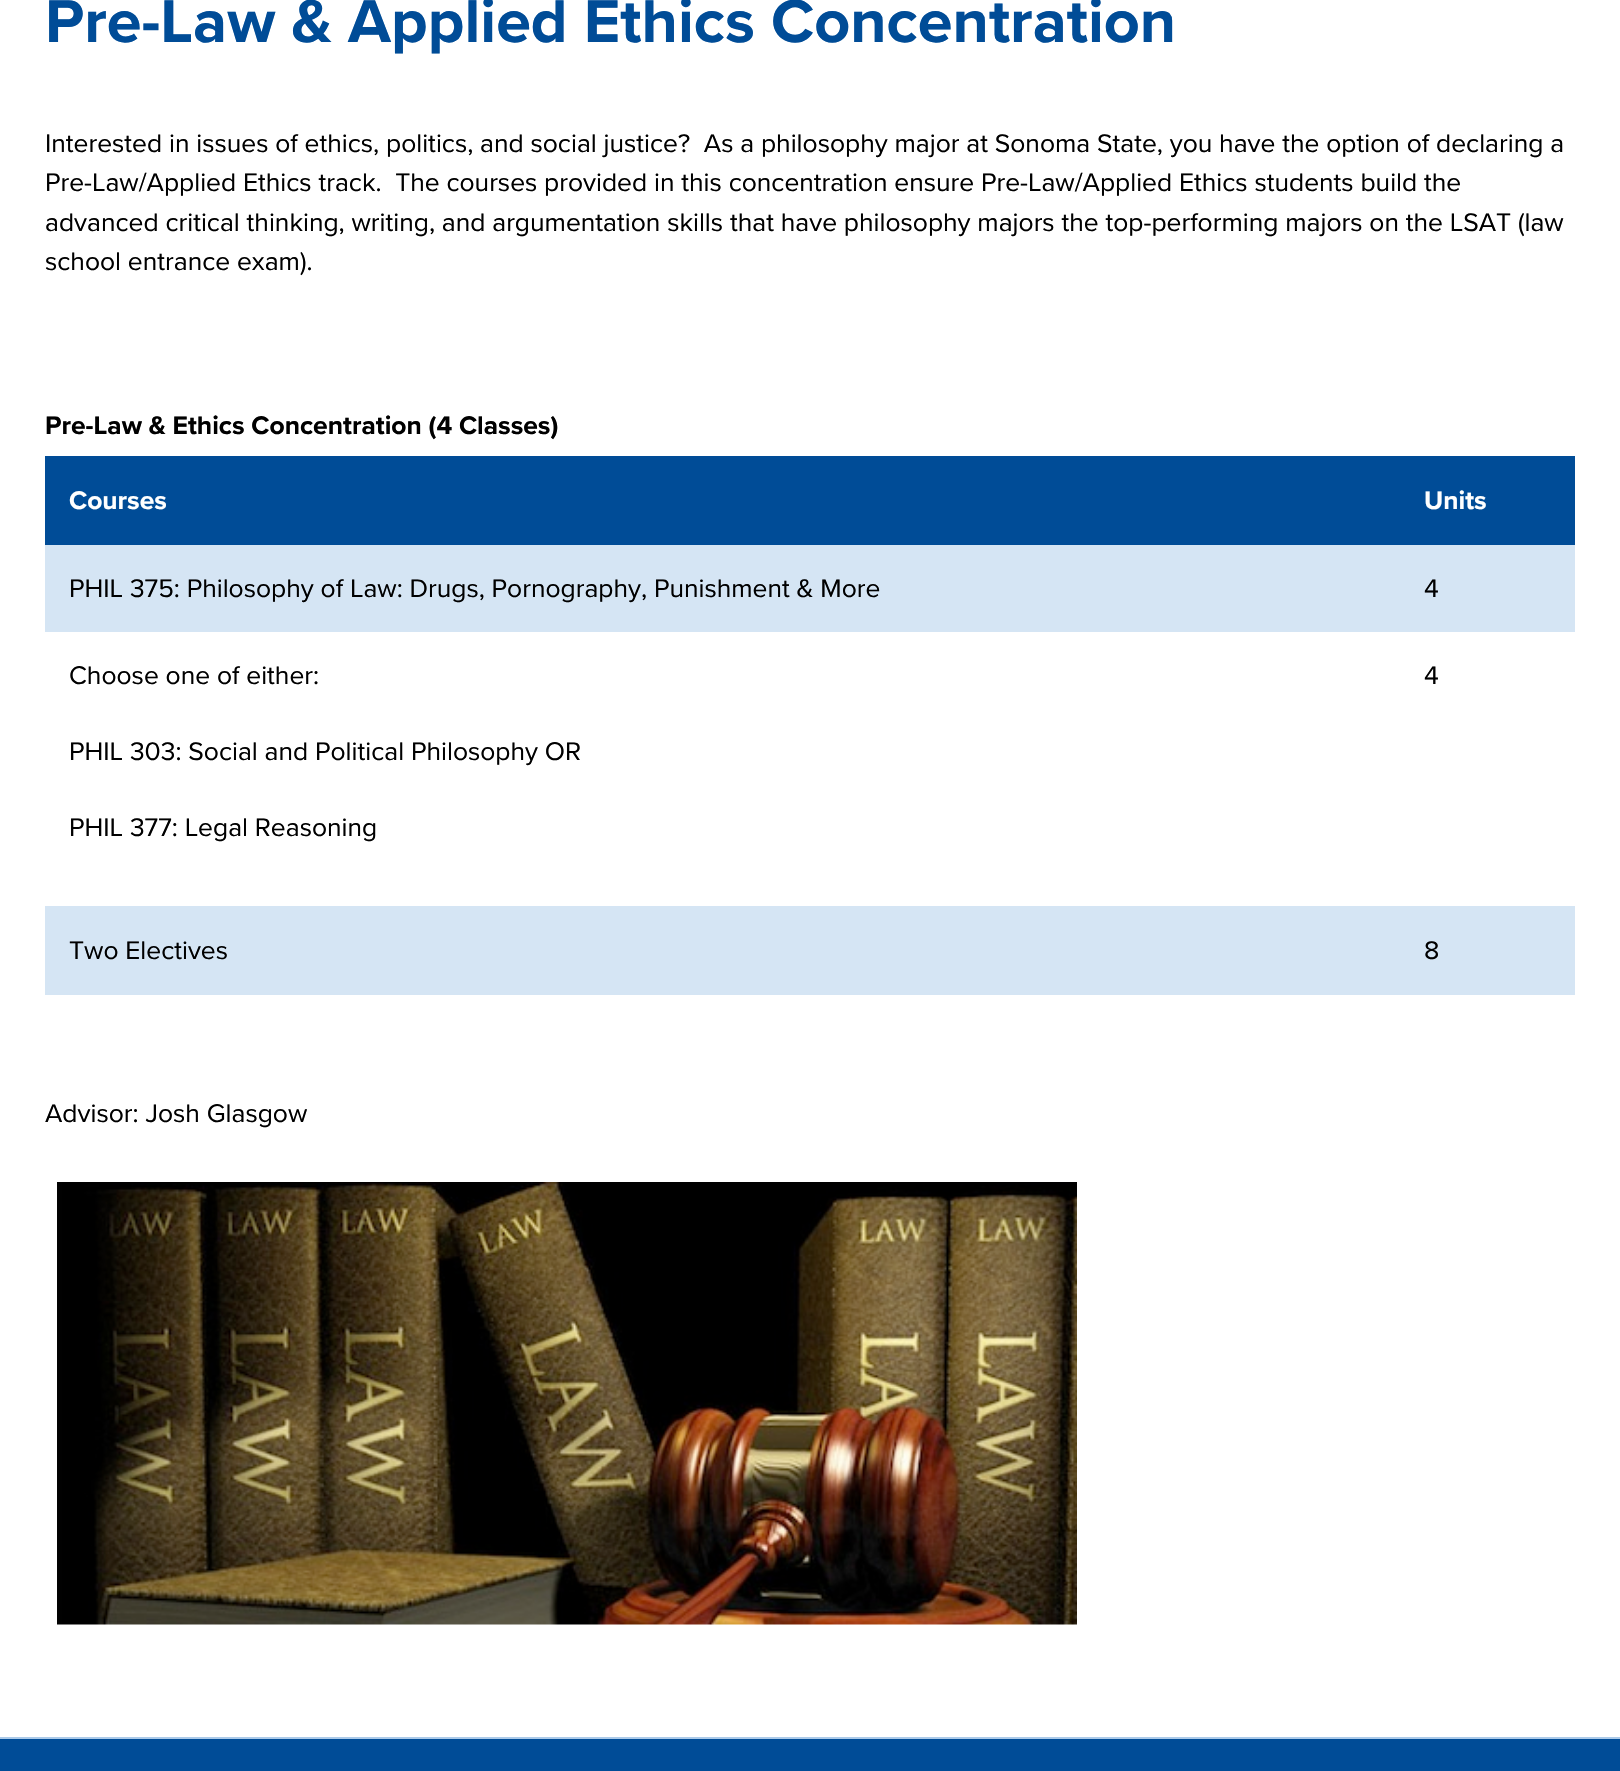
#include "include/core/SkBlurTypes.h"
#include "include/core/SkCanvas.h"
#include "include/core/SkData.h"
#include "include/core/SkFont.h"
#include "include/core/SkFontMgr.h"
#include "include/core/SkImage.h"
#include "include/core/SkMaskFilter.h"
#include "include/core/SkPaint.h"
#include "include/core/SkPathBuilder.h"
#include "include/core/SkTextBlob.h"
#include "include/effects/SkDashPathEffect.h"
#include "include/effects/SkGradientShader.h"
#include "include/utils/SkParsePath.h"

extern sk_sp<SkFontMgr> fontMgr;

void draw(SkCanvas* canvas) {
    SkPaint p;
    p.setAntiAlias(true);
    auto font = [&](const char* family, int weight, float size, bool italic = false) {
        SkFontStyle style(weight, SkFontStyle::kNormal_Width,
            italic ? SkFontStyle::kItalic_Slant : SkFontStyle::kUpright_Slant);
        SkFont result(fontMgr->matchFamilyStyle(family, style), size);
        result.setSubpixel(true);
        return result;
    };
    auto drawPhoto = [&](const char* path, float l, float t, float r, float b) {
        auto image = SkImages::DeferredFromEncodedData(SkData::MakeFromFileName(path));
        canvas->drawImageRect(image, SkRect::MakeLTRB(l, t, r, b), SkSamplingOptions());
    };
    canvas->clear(0xFFFFFFFF);
    auto font1 = font("Proxima Nova", 700, 62.75f);
    p.setColor(0xFF004C97);
    canvas->drawString("Pre-Law & Applied Ethics Concentration", 45, 42, font1, p);
    auto font2 = font("Proxima Nova", 400, 26.4f);
    p.setColor(0xFF000000);
    {
        const struct { const char* s; float x, y; } items[] = {
            {"Interested in issues of ethics, politics, and social justice?  As a philosophy major at Sonoma State, you have the option of declaring a", 45, 152},
            {"Pre-Law/Applied Ethics track.  The courses provided in this concentration ensure Pre-Law/Applied Ethics students build the", 45, 191},
            {"advanced critical thinking, writing, and argumentation skills that have philosophy majors the top-performing majors on the LSAT (law", 45, 231},
            {"school entrance exam).", 45, 270},
        };
        for (auto [s, x, y] : items) {
            canvas->drawString(s, x, y, font2, p);
        }
    }
    auto font3 = font("Proxima Nova", 700, 26.4f);
    canvas->drawString("Pre-Law & Ethics Concentration (4 Classes)", 45, 434, font3, p);
    p.setColor(0xFF004C97);
    canvas->drawRect(SkRect::MakeLTRB(45, 456, 1575, 545), p);
    p.setColor(0xFFFFFFFF);
    canvas->drawString("Courses", 69, 509, font3, p);
    canvas->drawString("Units", 1424, 509, font3, p);
    p.setColor(0xFFD5E5F4);
    canvas->drawRect(SkRect::MakeLTRB(45, 545, 1575, 632), p);
    p.setColor(0xFF000000);
    {
        const struct { const char* s; float x, y; } items[] = {
            {"PHIL 375: Philosophy of Law: Drugs, Pornography, Punishment & More", 69, 597},
            {"4", 1424, 597},
            {"Choose one of either:", 69, 684},
            {"PHIL 303: Social and Political Philosophy OR", 69, 760},
            {"PHIL 377: Legal Reasoning", 69, 836},
            {"4", 1424, 684},
        };
        for (auto [s, x, y] : items) {
            canvas->drawString(s, x, y, font2, p);
        }
    }
    p.setColor(0xFFD5E5F4);
    canvas->drawRect(SkRect::MakeLTRB(45, 906, 1575, 995), p);
    p.setColor(0xFF000000);
    {
        const struct { const char* s; float x, y; } items[] = {
            {"Two Electives", 69, 959},
            {"8", 1424, 959},
            {"Advisor: Josh Glasgow", 45, 1122},
        };
        for (auto [s, x, y] : items) {
            canvas->drawString(s, x, y, font2, p);
        }
    }
    drawPhoto("media/1.png", 57, 1182, 1077, 1625);
    p.setColor(0xFF004C97);
    canvas->drawRect(SkRect::MakeLTRB(0, 1739, 1620, 1771), p);
    p.setColor(0xFFABCAE9);
    canvas->drawRect(SkRect::MakeLTRB(0, 1737, 1620, 1739), p);
}
